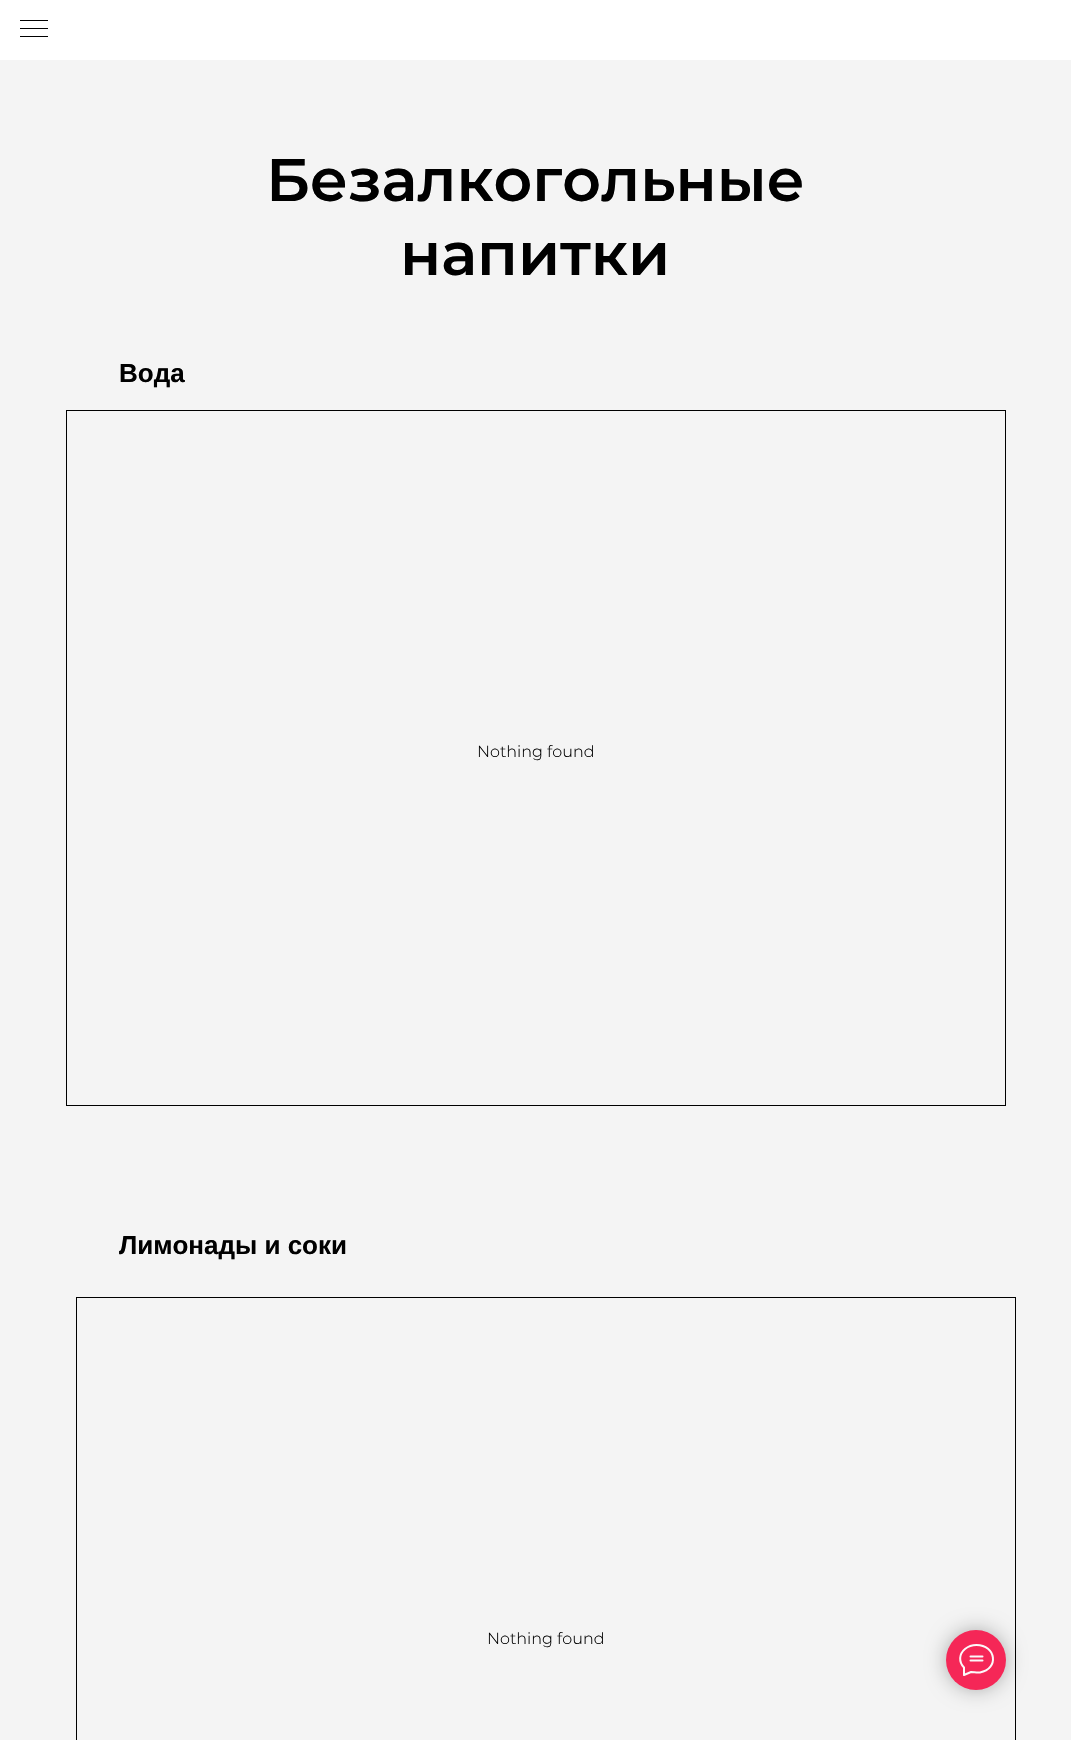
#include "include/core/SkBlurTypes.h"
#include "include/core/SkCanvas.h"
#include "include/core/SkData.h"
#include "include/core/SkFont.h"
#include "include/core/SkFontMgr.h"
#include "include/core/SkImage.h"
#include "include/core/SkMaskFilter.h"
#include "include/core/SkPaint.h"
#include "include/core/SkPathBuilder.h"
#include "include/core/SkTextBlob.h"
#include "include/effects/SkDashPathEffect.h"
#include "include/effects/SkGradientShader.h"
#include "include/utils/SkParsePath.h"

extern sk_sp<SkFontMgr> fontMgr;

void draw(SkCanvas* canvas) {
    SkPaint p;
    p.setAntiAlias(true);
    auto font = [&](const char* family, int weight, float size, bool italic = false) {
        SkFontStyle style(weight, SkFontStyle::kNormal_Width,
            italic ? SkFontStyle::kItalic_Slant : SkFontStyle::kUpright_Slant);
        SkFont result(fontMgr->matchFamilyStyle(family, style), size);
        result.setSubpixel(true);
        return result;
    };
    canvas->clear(0xFFFFFFFF);
    {
        const struct { float l, t, r, b; SkColor color; } items[] = {
            {20, 20, 48, 21, 0xFF000000},
            {20, 28, 48, 29, 0xFF000000},
            {20, 36, 48, 37, 0xFF000000},
            {0, 60, 1071, 1740, 0xFFF4F4F4},
        };
        for (auto [l, t, r, b, color] : items) {
            p.setColor(color);
            canvas->drawRect(SkRect::MakeLTRB(l, t, r, b), p);
        }
    }
    auto font1 = font("Montserrat", 600, 60);
    p.setColor(0xFF000000);
    canvas->drawString("Безалкогольные", 266, 201, font1, p);
    canvas->drawString("напитки", 400, 275, font1, p);
    auto font2 = font("Liberation Sans", 700, 26);
    canvas->drawString("Вода", 119, 382, font2, p);
    p.setStyle(SkPaint::kStroke_Style);
    p.setStrokeWidth(1);
    canvas->drawRect(SkRect::MakeLTRB(66.5f, 410.5f, 1005.5f, 1105.5f), p);
    auto font3 = font("Montserrat", 300, 16);
    p.setStyle(SkPaint::kFill_Style);
    canvas->drawString("Nothing found", 477, 757, font3, p);
    canvas->drawString("Лимонады и соки", 119, 1254, font2, p);
    p.setStyle(SkPaint::kStroke_Style);
    canvas->drawRect(SkRect::MakeLTRB(76.5f, 1297.5f, 1015.5f, 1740.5f), p);
    p.setStyle(SkPaint::kFill_Style);
    canvas->drawString("Nothing found", 487, 1644, font3, p);
    p.setColor(0x4D000000);
    p.setMaskFilter(SkMaskFilter::MakeBlur(kNormal_SkBlurStyle, 10));
    canvas->drawRoundRect(SkRect::MakeLTRB(946, 1630, 1006, 1690), 30, 30, p);
    p.setMaskFilter(nullptr);
    p.setColor(0xFFF52757);
    canvas->drawCircle(976, 1660, 30, p);
    p.setStyle(SkPaint::kStroke_Style);
    p.setStrokeWidth(2);
    p.setStrokeCap(SkPaint::kRound_Cap);
    p.setStrokeJoin(SkPaint::kRound_Join);
    p.setColor(0xFFFCF9FA);
    canvas->drawPath(SkPathBuilder().moveTo(970.5f, 1656.5f).lineTo(982.5f, 1656.5f).moveTo(970.5f, 1660.5f).lineTo(982.5f, 1660.5f).moveTo(964, 1667.5f).cubicTo(958.5f, 1662, 959, 1654, 965, 1649).cubicTo(968, 1646.5f, 972.5f, 1645, 976.5f, 1645).cubicTo(996, 1645, 999.5f, 1669, 980, 1672.5f).cubicTo(976, 1673, 974.5f, 1672, 971, 1672).lineTo(964, 1675).lineTo(964, 1668).close().detach(), p);
}
